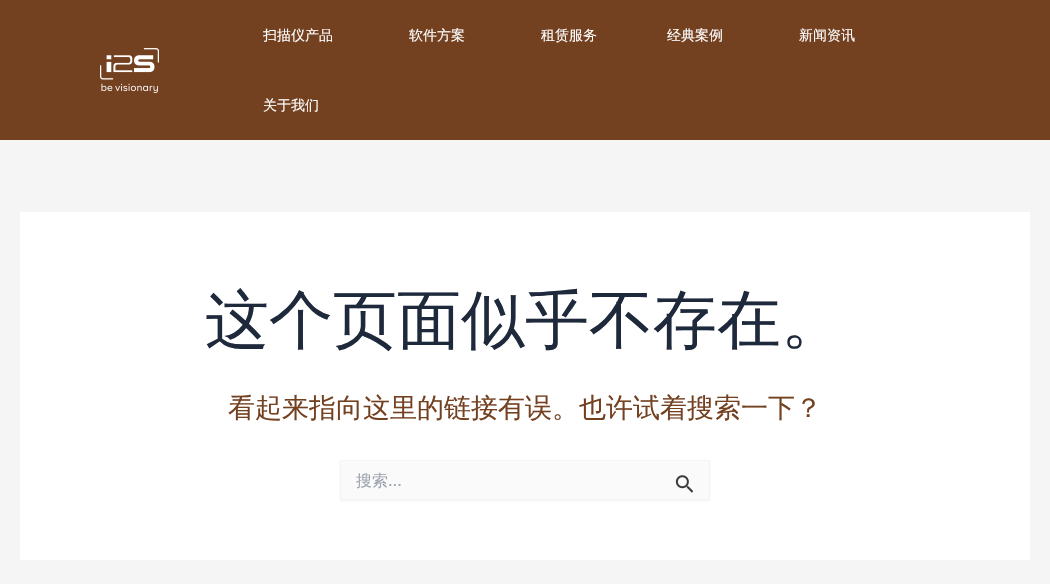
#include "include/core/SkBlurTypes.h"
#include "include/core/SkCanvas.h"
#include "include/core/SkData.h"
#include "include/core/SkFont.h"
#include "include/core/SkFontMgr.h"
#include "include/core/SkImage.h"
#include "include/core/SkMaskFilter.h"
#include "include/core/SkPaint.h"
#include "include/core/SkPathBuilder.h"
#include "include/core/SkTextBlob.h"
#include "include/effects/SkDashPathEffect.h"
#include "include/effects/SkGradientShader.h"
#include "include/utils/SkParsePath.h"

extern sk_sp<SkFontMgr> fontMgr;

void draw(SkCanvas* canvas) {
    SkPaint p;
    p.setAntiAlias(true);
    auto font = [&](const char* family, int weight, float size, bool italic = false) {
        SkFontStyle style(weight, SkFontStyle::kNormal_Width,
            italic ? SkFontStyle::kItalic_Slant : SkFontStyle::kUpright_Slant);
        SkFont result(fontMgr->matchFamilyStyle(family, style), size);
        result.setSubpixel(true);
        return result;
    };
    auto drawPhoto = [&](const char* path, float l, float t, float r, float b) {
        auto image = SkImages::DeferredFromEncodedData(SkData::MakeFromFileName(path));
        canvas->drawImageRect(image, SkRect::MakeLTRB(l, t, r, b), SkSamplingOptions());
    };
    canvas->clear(0xFFF5F5F5);
    p.setColor(0xFF734020);
    canvas->drawRect(SkRect::MakeLTRB(0, 0, 1050, 140), p);
    drawPhoto("media/1.png", 100, 48, 159, 93);
    auto font1 = font("WenQuanYi Zen Hei", 500, 14);
    p.setColor(0xFFFFFFFF);
    {
        const struct { const char* s; float x, y; } items[] = {
            {"扫描仪产品", 263, 40},
            {"软件方案", 409, 40},
            {"租赁服务", 541, 40},
            {"经典案例", 667, 40},
            {"新闻资讯", 799, 40},
            {"关于我们", 263, 110},
        };
        for (auto [s, x, y] : items) {
            canvas->drawString(s, x, y, font1, p);
        }
    }
    canvas->drawRect(SkRect::MakeLTRB(20, 212, 1030, 560), p);
    auto font2 = font("WenQuanYi Zen Hei", 500, 64);
    p.setColor(0xFF1E293B);
    canvas->drawString("这个页面似乎不存在。", 205, 342, font2, p);
    auto font3 = font("WenQuanYi Zen Hei", 500, 27);
    p.setColor(0xFF734020);
    canvas->drawString("看起来指向这里的链接有误。也许试着搜索一下？", 228, 417, font3, p);
    p.setColor(0x0D000000);
    p.setMaskFilter(SkMaskFilter::MakeBlur(kNormal_SkBlurStyle, 1));
    canvas->drawRoundRect(SkRect::MakeLTRB(340, 461, 710, 501), 2, 2, p);
    p.setMaskFilter(nullptr);
    p.setColor(0xFFFAFAFA);
    canvas->drawRoundRect(SkRect::MakeLTRB(340.5f, 460.5f, 709.5f, 499.5f), 1.5f, 1.5f, p);
    p.setStyle(SkPaint::kStroke_Style);
    p.setStrokeWidth(1);
    p.setColor(0xFFF2F5F7);
    canvas->drawRoundRect(SkRect::MakeLTRB(340.5f, 460.5f, 709.5f, 499.5f), 1.5f, 1.5f, p);
    auto font4 = font("WenQuanYi Zen Hei", 500, 16);
    p.setStyle(SkPaint::kFill_Style);
    p.setColor(0xFF9CA3AF);
    canvas->drawString("搜索", 356, 486, font4, p);
    auto font5 = font("Inter", 400, 16);
    canvas->drawString("…", 388, 486, font5, p);
    drawPhoto("media/2.png", 675, 475, 693, 493);
}
